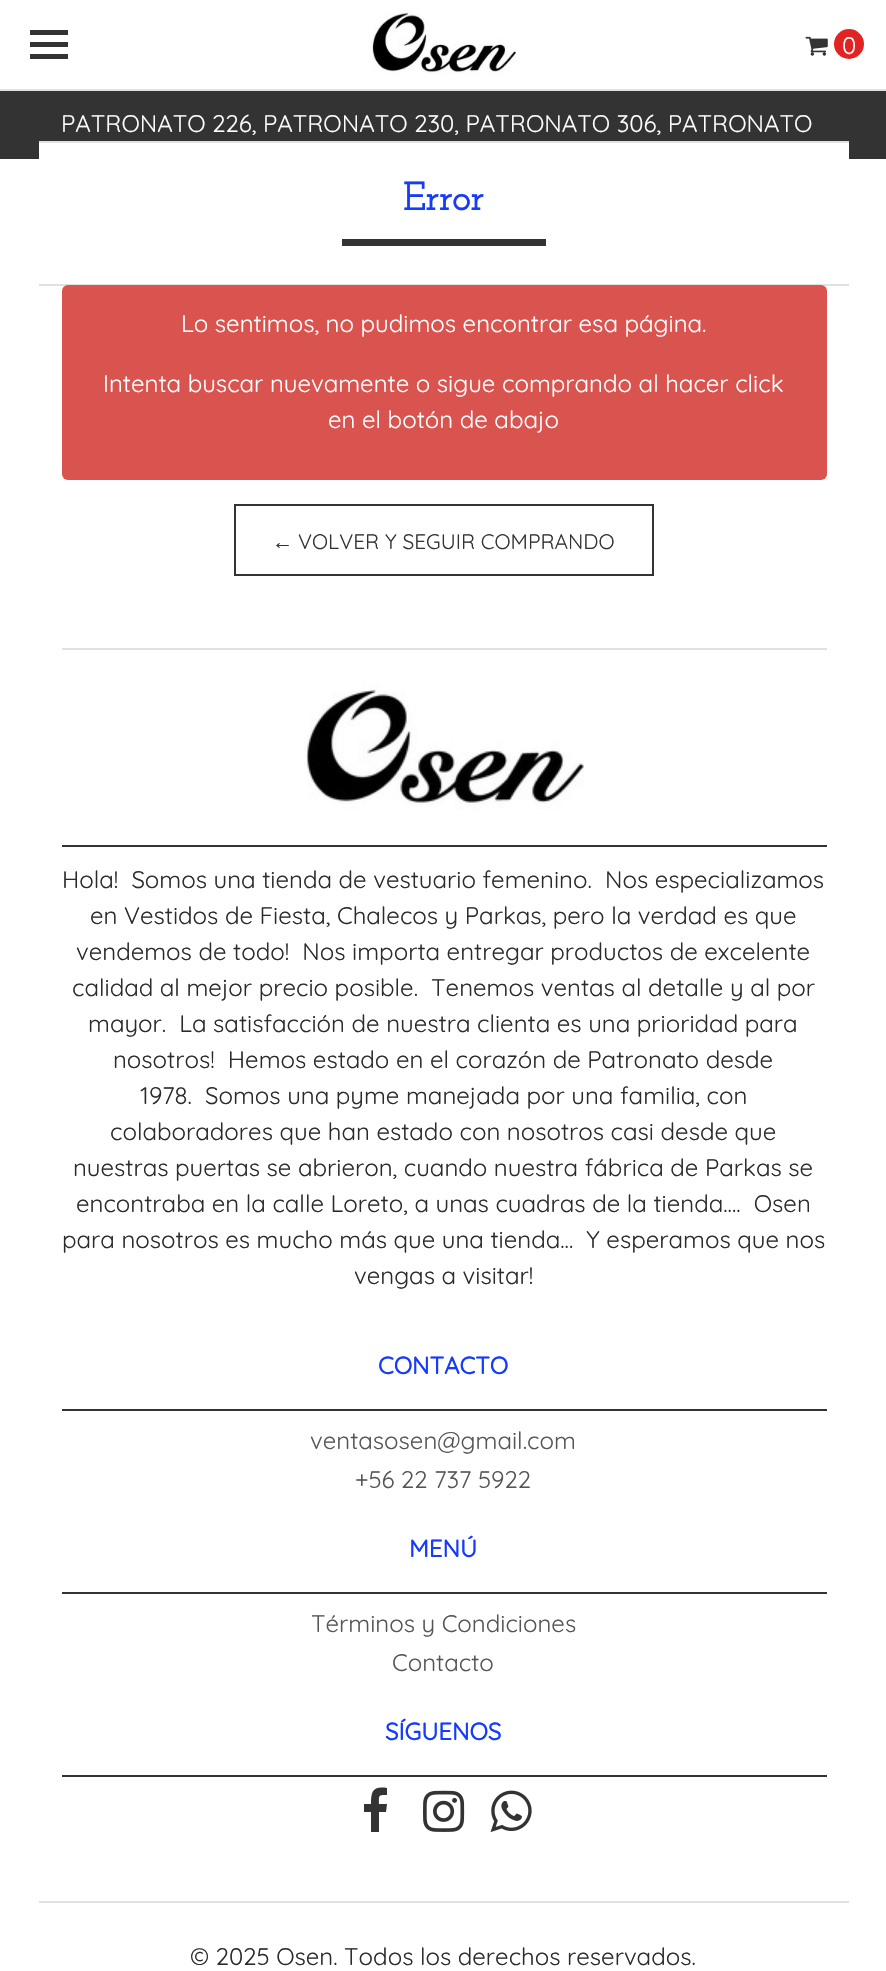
#include "include/core/SkBlurTypes.h"
#include "include/core/SkCanvas.h"
#include "include/core/SkData.h"
#include "include/core/SkFont.h"
#include "include/core/SkFontMgr.h"
#include "include/core/SkImage.h"
#include "include/core/SkMaskFilter.h"
#include "include/core/SkPaint.h"
#include "include/core/SkPathBuilder.h"
#include "include/core/SkTextBlob.h"
#include "include/effects/SkDashPathEffect.h"
#include "include/effects/SkGradientShader.h"
#include "include/utils/SkParsePath.h"

extern sk_sp<SkFontMgr> fontMgr;

void draw(SkCanvas* canvas) {
    SkPaint p;
    p.setAntiAlias(true);
    auto font = [&](const char* family, int weight, float size, bool italic = false) {
        SkFontStyle style(weight, SkFontStyle::kNormal_Width,
            italic ? SkFontStyle::kItalic_Slant : SkFontStyle::kUpright_Slant);
        SkFont result(fontMgr->matchFamilyStyle(family, style), size);
        result.setSubpixel(true);
        return result;
    };
    auto drawPhoto = [&](const char* path, float l, float t, float r, float b) {
        auto image = SkImages::DeferredFromEncodedData(SkData::MakeFromFileName(path));
        canvas->drawImageRect(image, SkRect::MakeLTRB(l, t, r, b), SkSamplingOptions());
    };
    canvas->clear(0xFFFFFFFF);
    {
        const struct { float l, t, r, b; SkColor color; } items[] = {
            {30, 30, 68, 35, 0xFF333333},
            {30, 42, 68, 47, 0xFF333333},
            {30, 54, 68, 59, 0xFF333333},
            {0, 89, 886, 91, 0xFFE1E1E1},
        };
        for (auto [l, t, r, b, color] : items) {
            p.setColor(color);
            canvas->drawRect(SkRect::MakeLTRB(l, t, r, b), p);
        }
    }
    drawPhoto("media/1.png", 372, 9, 516, 75);
    drawPhoto("media/2.png", 805, 36, 828, 56);
    p.setColor(0xFFE22323);
    canvas->drawCircle(849, 44, 15, p);
    auto font1 = font("Quicksand", 300, 24);
    p.setColor(0xFFFFFFFF);
    canvas->drawString("0", 842, 54, font1, p);
    p.setColor(0xFF333333);
    canvas->drawRect(SkRect::MakeLTRB(0, 91, 886, 159), p);
    p.setColor(0xFFFFFFFF);
    canvas->drawString("PATRONATO 226, PATRONATO 230, PATRONATO 306, PATRONATO", 61, 132, font1, p);
    {
        const struct { float l, t, r, b; SkColor color; } items[] = {
            {39, 143, 849, 159, 0xFFFFFFFF},
            {39, 141, 849, 143, 0xFFE1E1E1},
            {39, 284, 849, 286, 0xFFE1E1E1},
        };
        for (auto [l, t, r, b, color] : items) {
            p.setColor(color);
            canvas->drawRect(SkRect::MakeLTRB(l, t, r, b), p);
        }
    }
    auto font2 = font("Josefin Slab", 700, 39);
    p.setColor(0xFF163CFA);
    canvas->drawString("Error", 403, 210, font2, p);
    p.setColor(0xFF333333);
    canvas->drawRect(SkRect::MakeLTRB(342, 239, 546, 246), p);
    p.setColor(0xFFD9534F);
    canvas->drawRoundRect(SkRect::MakeLTRB(62, 285, 827, 480), 6, 6, p);
    p.setColor(0xFFFFFFFF);
    {
        const struct { const char* s; float x, y; } items[] = {
            {"Lo sentimos, no pudimos encontrar esa página.", 181, 332},
            {"Intenta buscar nuevamente o sigue comprando al hacer click", 103, 392},
            {"en el botón de abajo", 328, 428},
        };
        for (auto [s, x, y] : items) {
            canvas->drawString(s, x, y, font1, p);
        }
    }
    p.setStyle(SkPaint::kStroke_Style);
    p.setStrokeWidth(2);
    p.setColor(0xFF333333);
    canvas->drawRect(SkRect::MakeLTRB(235, 505, 653, 575), p);
    auto font3 = font("Liberation Sans", 400, 21);
    p.setStyle(SkPaint::kFill_Style);
    canvas->drawString("←", 272, 549, font3, p);
    auto font4 = font("Quicksand", 300, 21);
    canvas->drawString("VOLVER Y SEGUIR COMPRANDO", 298, 549, font4, p);
    p.setColor(0xFFE1E1E1);
    canvas->drawRect(SkRect::MakeLTRB(62, 648, 827, 650), p);
    drawPhoto("media/3.png", 304, 683, 584, 810);
    p.setColor(0xFF333333);
    canvas->drawRect(SkRect::MakeLTRB(62, 845, 827, 847), p);
    p.setColor(0xFF292B2C);
    {
        const struct { const char* s; float x, y; } items[] = {
            {"Hola!  Somos una tienda de vestuario femenino.  Nos especializamos", 62, 888},
            {"en Vestidos de Fiesta, Chalecos y Parkas, pero la verdad es que", 90, 924},
            {"vendemos de todo!  Nos importa entregar productos de excelente", 76, 960},
            {"calidad al mejor precio posible.  Tenemos ventas al detalle y al por", 72, 996},
            {"mayor.  La satisfacción de nuestra clienta es una prioridad para", 88, 1032},
            {"nosotros!  Hemos estado en el corazón de Patronato desde", 113, 1068},
            {"1978.  Somos una pyme manejada por una familia, con", 140, 1104},
            {"colaboradores que han estado con nosotros casi desde que", 110, 1140},
            {"nuestras puertas se abrieron, cuando nuestra fábrica de Parkas se", 73, 1176},
            {"encontraba en la calle Loreto, a unas cuadras de la tienda....  Osen", 76, 1212},
            {"para nosotros es mucho más que una tienda...  Y esperamos que nos", 62, 1248},
            {"vengas a visitar!", 354, 1284},
        };
        for (auto [s, x, y] : items) {
            canvas->drawString(s, x, y, font1, p);
        }
    }
    p.setColor(0xFF333333);
    canvas->drawRect(SkRect::MakeLTRB(62, 1409, 827, 1411), p);
    auto font5 = font("Quicksand", 700, 24);
    p.setColor(0xFF163CFA);
    canvas->drawString("CONTACTO", 378, 1374, font5, p);
    p.setColor(0xFF555555);
    canvas->drawString("ventasosen@gmail.com", 310, 1449, font1, p);
    canvas->drawString("+56 22 737 5922", 355, 1488, font1, p);
    p.setColor(0xFF333333);
    canvas->drawRect(SkRect::MakeLTRB(62, 1592, 827, 1594), p);
    p.setColor(0xFF163CFA);
    canvas->drawString("MENÚ", 409, 1557, font5, p);
    p.setColor(0xFF555555);
    canvas->drawString("Términos y Condiciones", 311, 1632, font1, p);
    canvas->drawString("Contacto", 392, 1671, font1, p);
    p.setColor(0xFF333333);
    canvas->drawRect(SkRect::MakeLTRB(62, 1775, 827, 1777), p);
    p.setColor(0xFF163CFA);
    canvas->drawString("SÍGUENOS", 385, 1740, font5, p);
    p.setColor(0xFF333333);
    canvas->drawPath(SkPathBuilder().moveTo(387, 1788).lineTo(387, 1795).cubicTo(378, 1795, 379, 1795, 379, 1804).lineTo(387, 1804).lineTo(386, 1812).lineTo(379, 1812).lineTo(379, 1832).lineTo(371, 1832).lineTo(371, 1812).lineTo(364, 1812).lineTo(364, 1804).lineTo(371, 1804).cubicTo(371, 1791, 373, 1786, 387, 1788).close().detach(), p);
    drawPhoto("media/4.png", 423, 1790, 465, 1832);
    drawPhoto("media/5.png", 490, 1790, 532, 1832);
    p.setColor(0xFFE1E1E1);
    canvas->drawRect(SkRect::MakeLTRB(39, 1901, 849, 1903), p);
    p.setColor(0xFF292B2C);
    canvas->drawString("© 2025 Osen. Todos los derechos reservados.", 190, 1965, font1, p);
}
